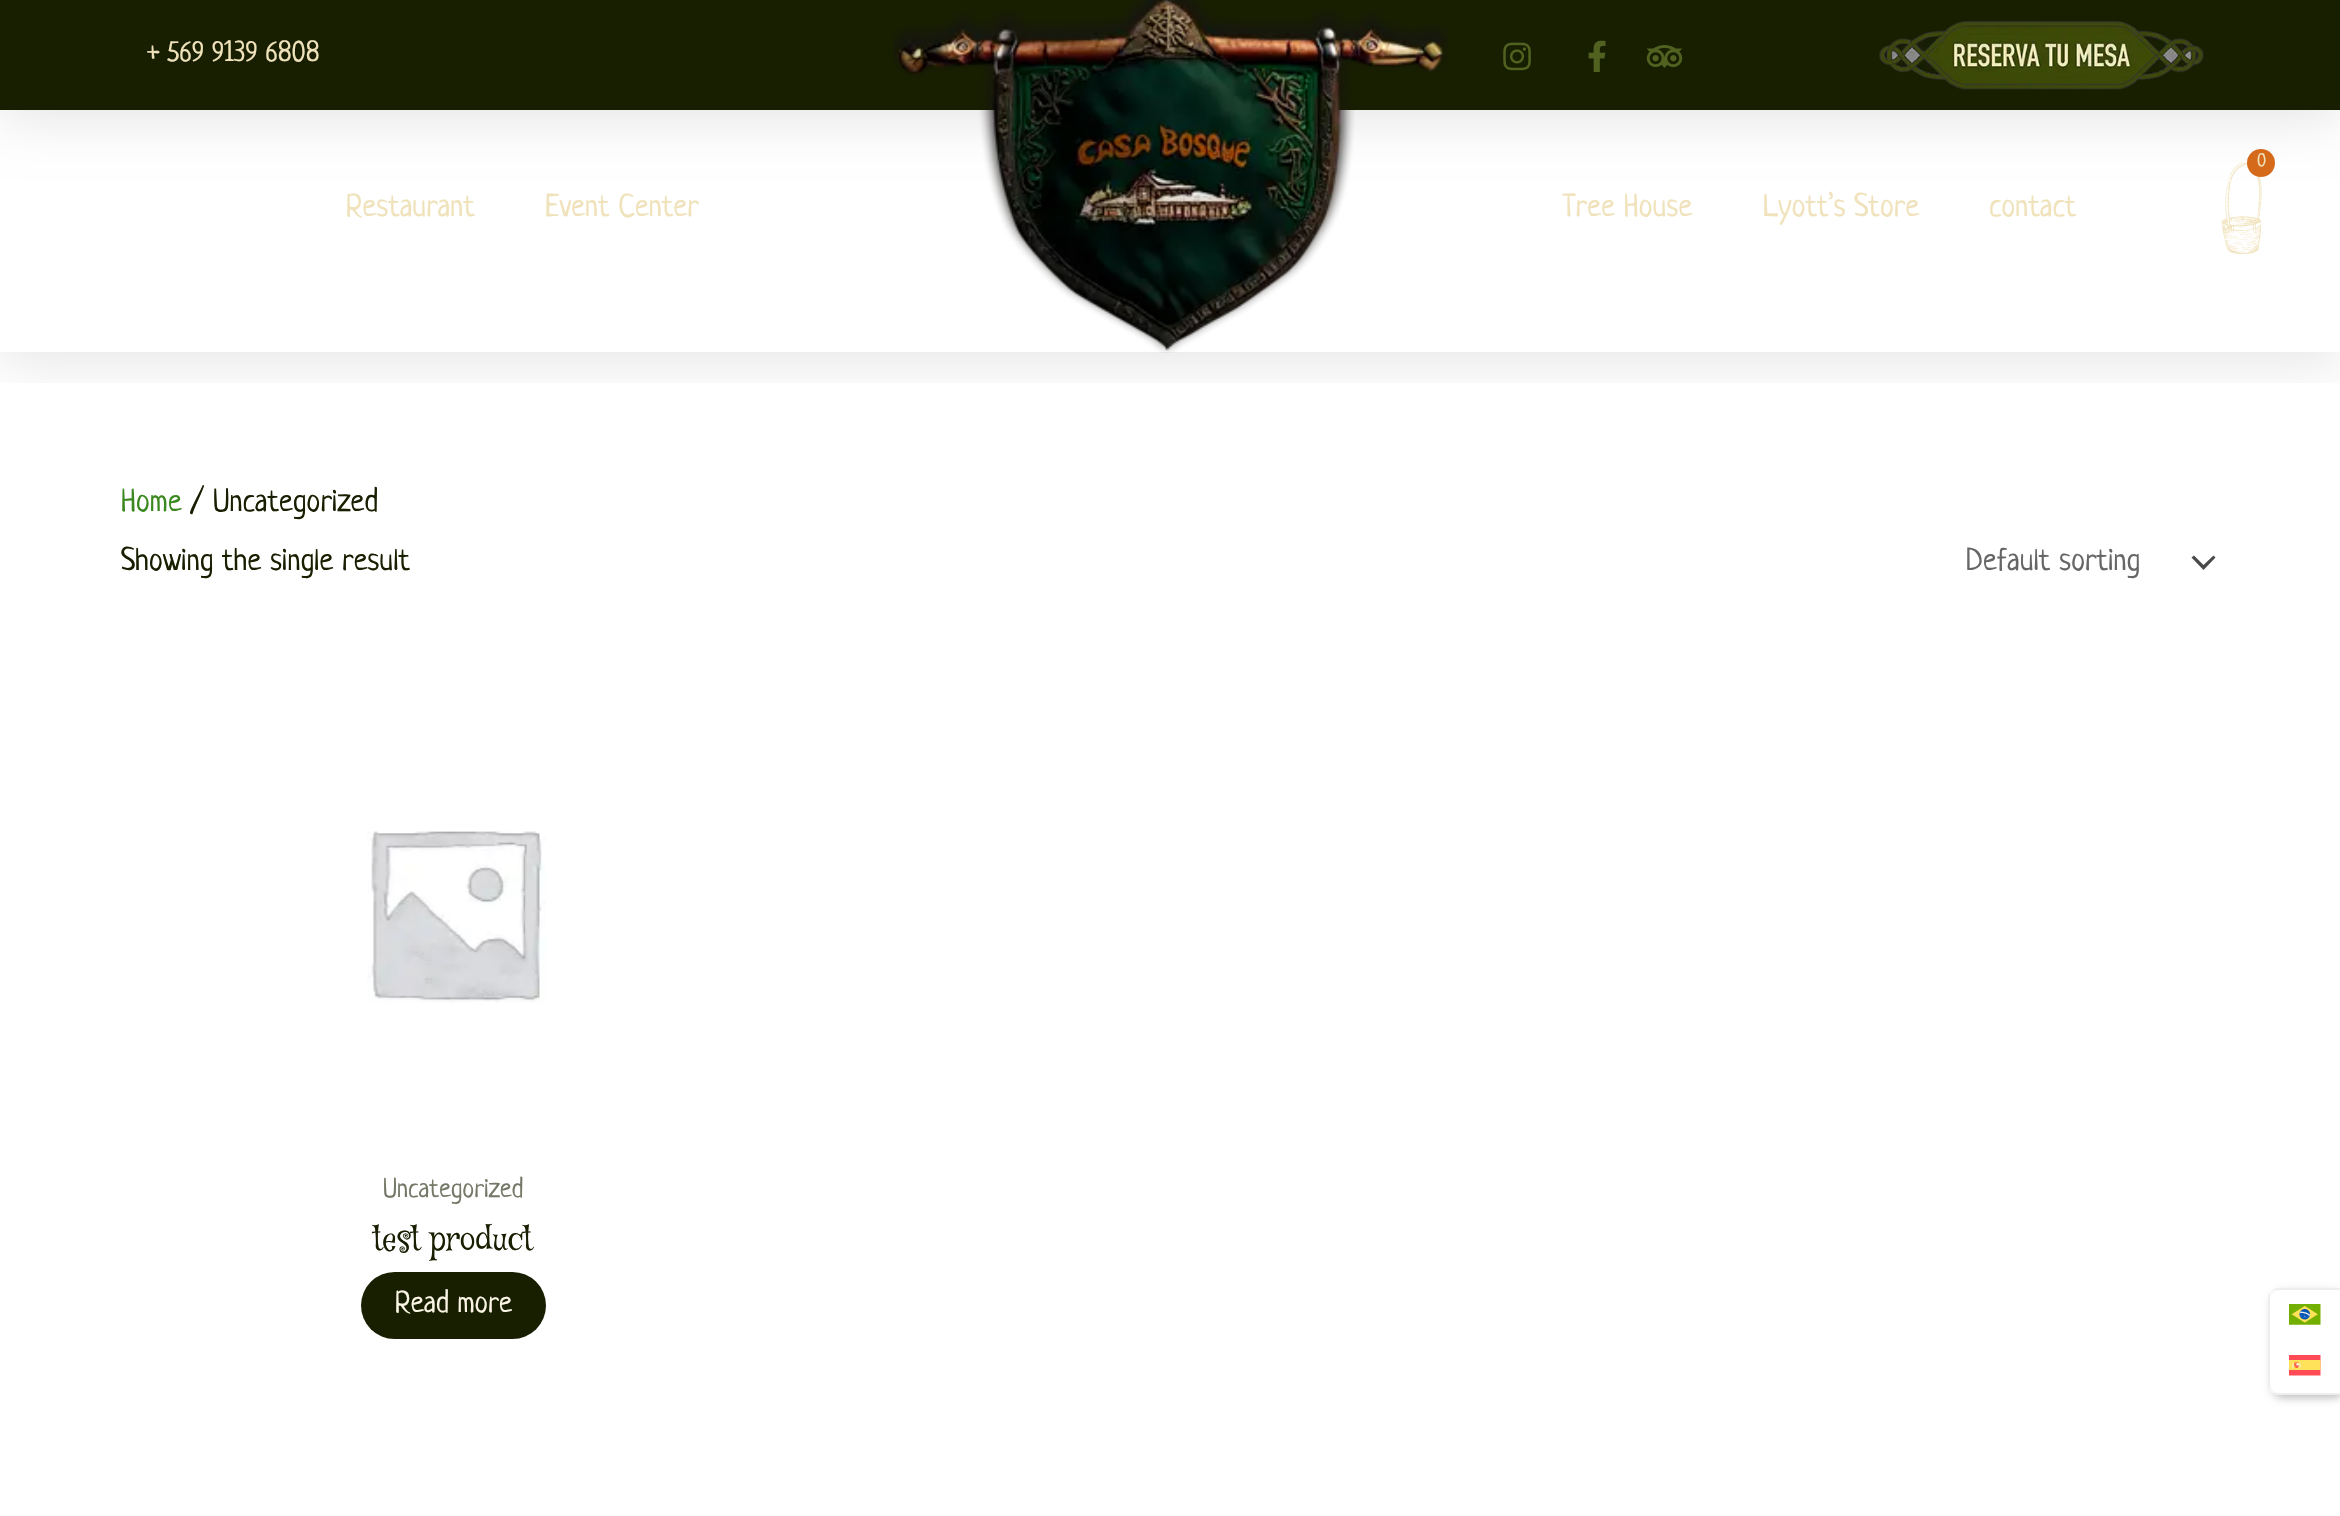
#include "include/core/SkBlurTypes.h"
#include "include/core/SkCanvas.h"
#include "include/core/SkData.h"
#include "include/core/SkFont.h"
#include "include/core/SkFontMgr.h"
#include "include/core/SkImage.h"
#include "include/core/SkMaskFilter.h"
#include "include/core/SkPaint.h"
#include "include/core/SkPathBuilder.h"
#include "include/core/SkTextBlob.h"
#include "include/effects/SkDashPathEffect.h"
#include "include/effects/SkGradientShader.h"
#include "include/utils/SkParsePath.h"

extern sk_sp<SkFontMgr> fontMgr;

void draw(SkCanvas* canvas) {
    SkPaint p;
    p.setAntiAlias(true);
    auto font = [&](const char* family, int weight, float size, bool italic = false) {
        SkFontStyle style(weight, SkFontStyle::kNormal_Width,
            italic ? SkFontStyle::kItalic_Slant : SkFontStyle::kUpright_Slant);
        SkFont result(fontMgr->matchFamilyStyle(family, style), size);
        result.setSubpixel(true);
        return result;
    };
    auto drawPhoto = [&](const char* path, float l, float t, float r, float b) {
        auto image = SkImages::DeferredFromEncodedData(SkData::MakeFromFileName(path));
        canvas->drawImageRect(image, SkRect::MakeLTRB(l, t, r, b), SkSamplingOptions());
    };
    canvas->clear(0xFFFFFFFF);
    canvas->save();
    canvas->clipRect(SkRect::MakeLTRB(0, 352, 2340, 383));
    p.setColor(0x1A000000);
    p.setMaskFilter(SkMaskFilter::MakeBlur(kNormal_SkBlurStyle, 26));
    canvas->drawRect(SkRect::MakeLTRB(0, 9, 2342, 361), p);
    p.setMaskFilter(nullptr);
    canvas->restore();
    p.setMaskFilter(SkMaskFilter::MakeBlur(kNormal_SkBlurStyle, 26));
    canvas->drawRect(SkRect::MakeLTRB(0, 9, 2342, 119), p);
    p.setMaskFilter(nullptr);
    p.setColor(0xFF181F01);
    canvas->drawRect(SkRect::MakeLTRB(0, 0, 2340, 110), p);
    auto font1 = font("Neucha", 400, 28);
    p.setColor(0xFFF0E2BB);
    canvas->drawString("+ 569 9139 6808", 147, 61, font1, p);
    drawPhoto("media/1.png", 1503, 42, 1531, 71);
    drawPhoto("media/2.png", 1588, 40, 1606, 72);
    drawPhoto("media/3.png", 1646, 45, 1683, 68);
    drawPhoto("media/4.png", 1879, 21, 2204, 90);
    drawPhoto("media/5.png", 893, 0, 1449, 353);
    drawPhoto("media/6.png", 2221, 163, 2262, 254);
    p.setColor(0xFFD66A1B);
    canvas->drawCircle(2261, 163, 14, p);
    auto font2 = font("Neucha", 400, 18);
    p.setColor(0xFFF0E2BB);
    canvas->drawString("0", 2257, 166, font2, p);
    auto font3 = font("Neucha", 400, 31.5f);
    {
        const struct { const char* s; float x, y; } items[] = {
            {"Restaurant", 346, 216},
            {"Event Center", 545, 216},
            {"Tree House", 1562, 216},
            {"Lyott’s Store", 1763, 216},
            {"contact", 1989, 216},
        };
        for (auto [s, x, y] : items) {
            canvas->drawString(s, x, y, font3, p);
        }
    }
    p.setColor(0xFF3B881F);
    canvas->drawString("Home", 121, 511, font3, p);
    p.setColor(0xFF181F01);
    canvas->drawString("/ Uncategorized", 190, 511, font3, p);
    canvas->drawString("Showing the single result", 121, 570, font3, p);
    p.setColor(0xFF4A4A4A);
    canvas->drawPath(SkPathBuilder().moveTo(2191.5f, 557.5f).lineTo(2203.5f, 570).lineTo(2215.5f, 557.5f).lineTo(2213.5f, 555.5f).lineTo(2203.5f, 565).lineTo(2194, 555.5f).close().detach(), p);
    p.setColor(0xFF666666);
    canvas->drawString("Default sorting", 1966, 570, font3, p);
    drawPhoto("media/7.png", 367, 831, 546, 1003);
    auto font4 = font("Neucha", 400, 26.75f);
    p.setColor(0xFF747967);
    canvas->drawString("Uncategorized", 383, 1197, font4, p);
    auto font5 = font("Mystery Quest", 400, 31.5f);
    p.setColor(0xFF181F01);
    canvas->drawString("test product", 373, 1250, font5, p);
    canvas->drawRoundRect(SkRect::MakeLTRB(361, 1272, 546, 1339), 33.5f, 33.5f, p);
    auto font6 = font("Neucha", 400, 30);
    p.setColor(0xFFFAF5E5);
    canvas->drawString("Read more", 395, 1312, font6, p);
    canvas->save();
    canvas->clipPath(SkPathBuilder(SkPathFillType::kEvenOdd).moveTo(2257, 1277).lineTo(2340, 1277).lineTo(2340, 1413).lineTo(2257, 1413).close().moveTo(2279, 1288).lineTo(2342, 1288).lineTo(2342, 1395).lineTo(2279, 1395).cubicTo(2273, 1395, 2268, 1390, 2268, 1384).lineTo(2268, 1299).cubicTo(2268, 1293, 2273, 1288, 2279, 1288).close().detach(), true);
    p.setColor(0x40000000);
    p.setMaskFilter(SkMaskFilter::MakeBlur(kNormal_SkBlurStyle, 4.5f));
    canvas->drawRoundRect(SkRect::MakeLTRB(2272, 1292, 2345, 1398), 11, 11, p);
    p.setMaskFilter(nullptr);
    canvas->restore();
    p.setStyle(SkPaint::kStroke_Style);
    p.setStrokeWidth(2);
    p.setColor(0xFFEEEEEE);
    canvas->drawPath(SkPathBuilder().moveTo(2279, 1289).lineTo(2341, 1289).lineTo(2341, 1394).lineTo(2279, 1394).cubicTo(2273.5f, 1394, 2269, 1389.5f, 2269, 1384).lineTo(2269, 1299).cubicTo(2269, 1293.5f, 2273.5f, 1289, 2279, 1289).close().detach(), p);
    p.setStyle(SkPaint::kFill_Style);
    p.setColor(0x80FFFFFF);
    canvas->drawRect(SkRect::MakeLTRB(2270, 1290, 2277, 1393), p);
    drawPhoto("media/8.png", 2289, 1304, 2321, 1325);
    drawPhoto("media/9.png", 2289, 1355, 2321, 1376);
}
